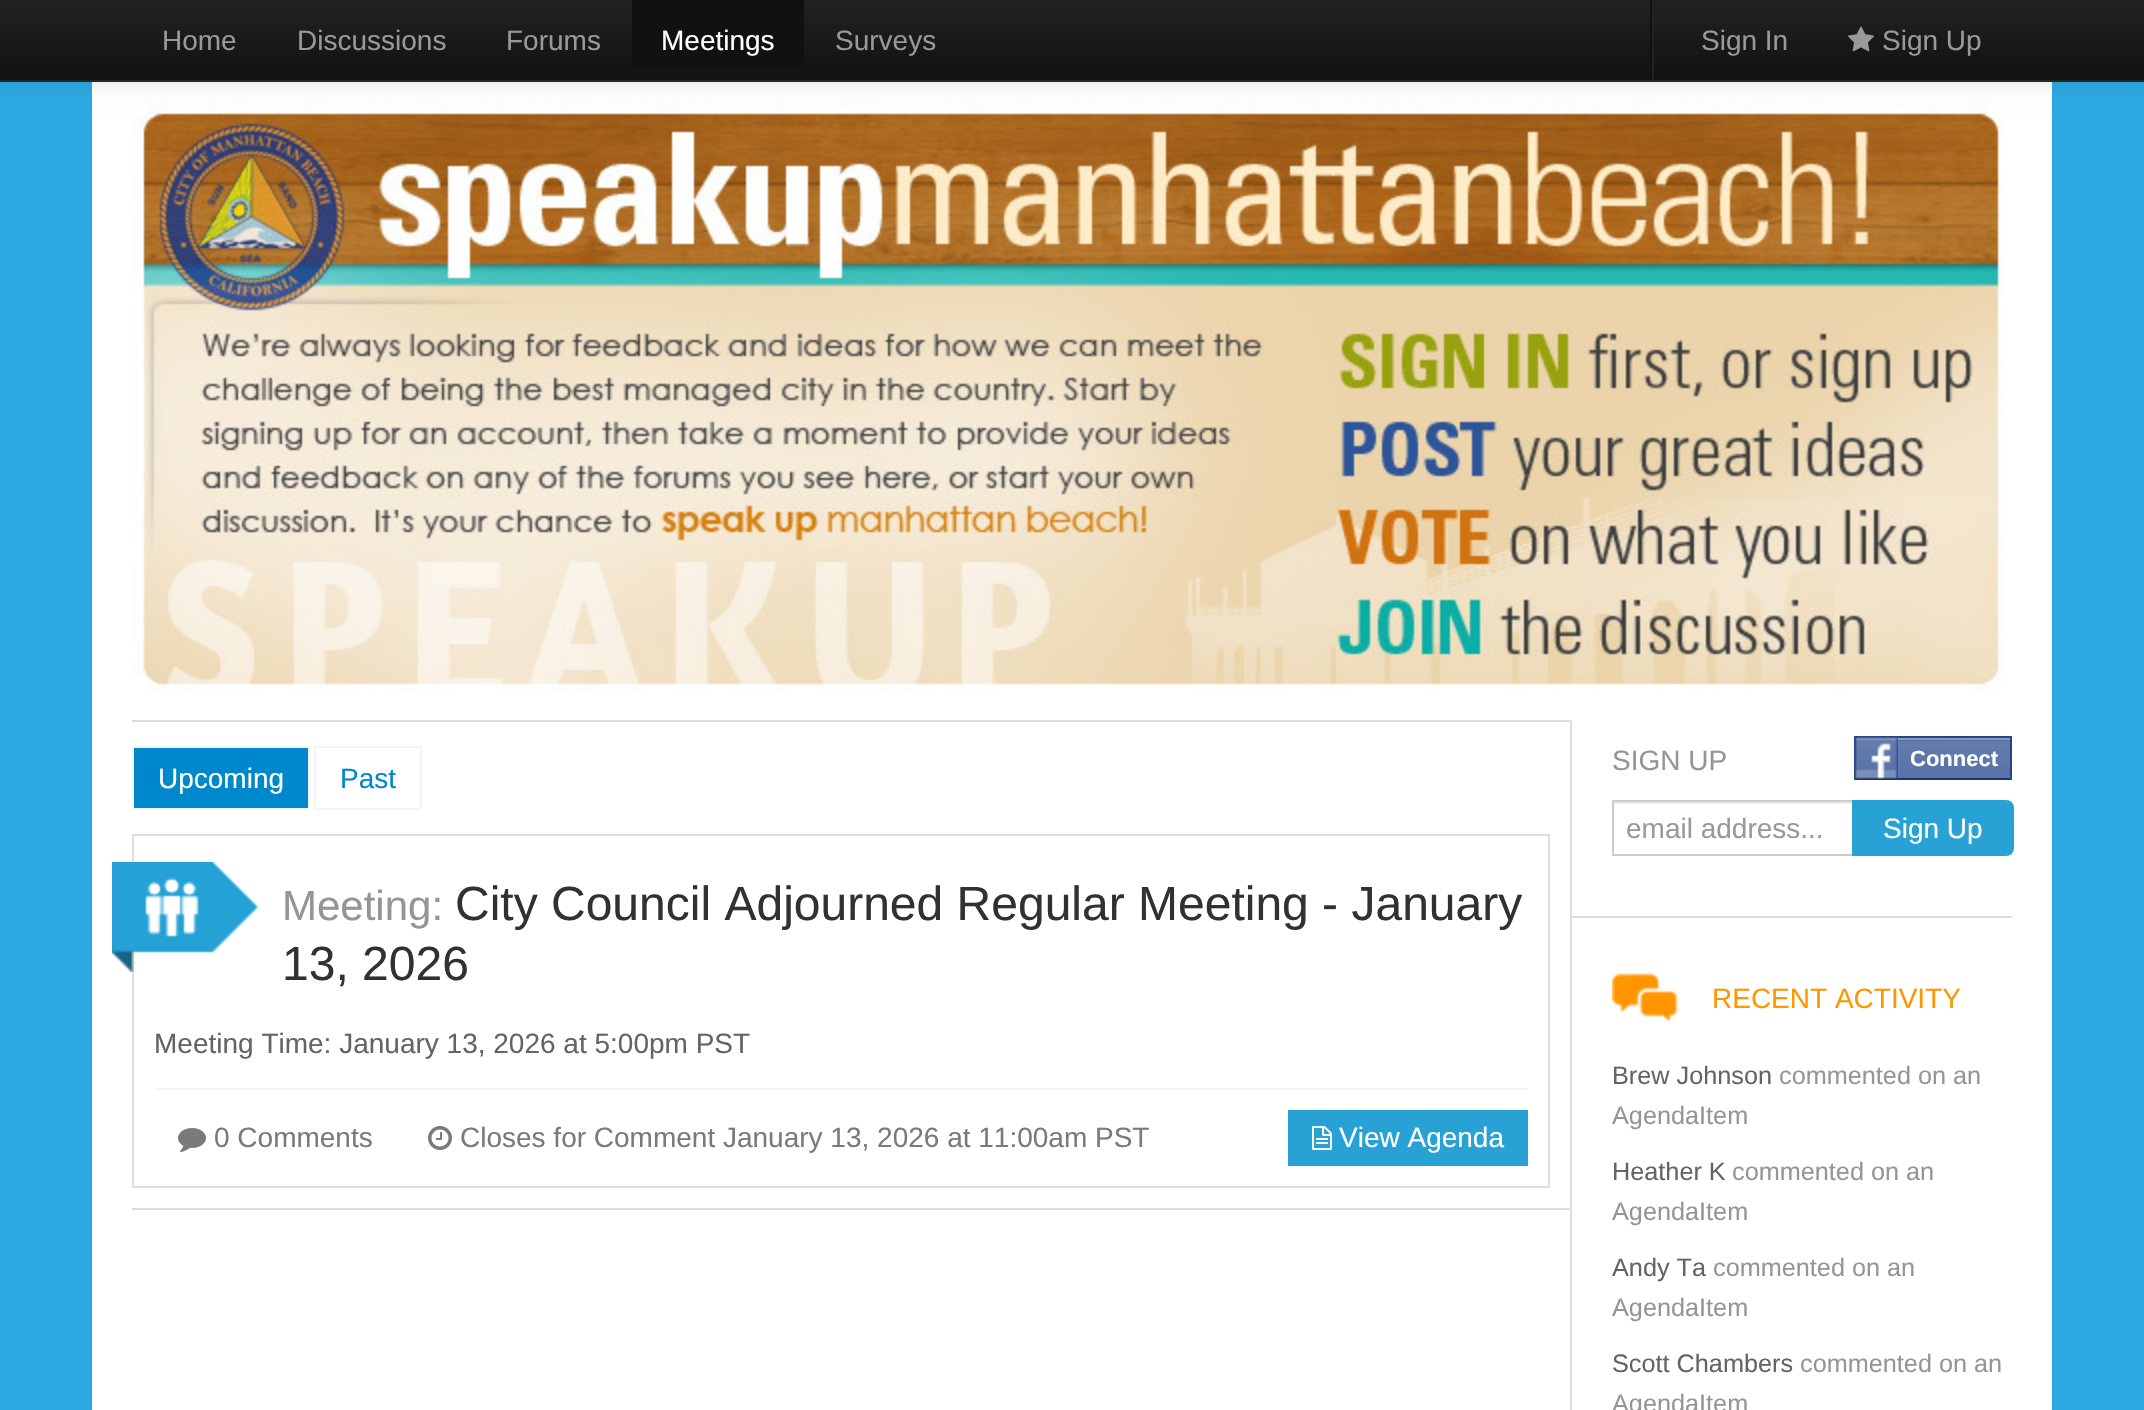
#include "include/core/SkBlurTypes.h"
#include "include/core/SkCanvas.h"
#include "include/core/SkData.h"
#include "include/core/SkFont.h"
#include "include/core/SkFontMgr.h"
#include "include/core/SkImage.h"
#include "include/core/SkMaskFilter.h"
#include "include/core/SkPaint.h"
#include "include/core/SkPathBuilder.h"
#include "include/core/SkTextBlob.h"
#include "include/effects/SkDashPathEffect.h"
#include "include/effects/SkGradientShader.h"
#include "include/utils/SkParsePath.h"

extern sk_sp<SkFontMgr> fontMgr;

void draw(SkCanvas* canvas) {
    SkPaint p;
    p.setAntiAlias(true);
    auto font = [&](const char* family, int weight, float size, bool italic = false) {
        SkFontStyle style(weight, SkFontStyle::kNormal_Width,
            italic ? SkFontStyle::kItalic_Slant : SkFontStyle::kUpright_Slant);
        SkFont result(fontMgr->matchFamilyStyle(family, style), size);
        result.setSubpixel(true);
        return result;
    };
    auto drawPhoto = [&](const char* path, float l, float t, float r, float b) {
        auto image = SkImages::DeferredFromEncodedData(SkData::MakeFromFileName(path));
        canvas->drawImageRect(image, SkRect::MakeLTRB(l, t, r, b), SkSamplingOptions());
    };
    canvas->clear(0xFF2CA9E3);
    p.setColor(0xFFFFFFFF);
    canvas->drawRect(SkRect::MakeLTRB(92, 82, 2052, 1410), p);
    drawPhoto("media/2.png", 132, 100, 2004, 692);
    p.setColor(0x1A000000);
    p.setMaskFilter(SkMaskFilter::MakeBlur(kNormal_SkBlurStyle, 10));
    canvas->drawRect(SkRect::MakeLTRB(0, 2, 2144, 84), p);
    p.setMaskFilter(nullptr);
    {
        const SkColor colors[] = {0xFF222222, 0xFF111111};
        const float stops[] = {0, 1};
        const SkPoint ends[] = {{1072, 0}, {1072, 80}};
        p.setShader(SkGradientShader::MakeLinear(ends, colors, stops, 2, SkTileMode::kClamp));
        p.setAlpha(255);
    }
    canvas->drawRect(SkRect::MakeLTRB(0, 0, 2144, 80), p);
    p.setShader(nullptr);
    p.setColor(0xFF252525);
    canvas->drawRect(SkRect::MakeLTRB(0, 80, 2144, 82), p);
    auto font1 = font("Liberation Sans", 400, 28);
    p.setColor(0xFF999999);
    {
        const struct { const char* s; float x, y; } items[] = {
            {"Home", 162, 50},
            {"Discussions", 297, 50},
            {"Forums", 506, 50},
        };
        for (auto [s, x, y] : items) {
            canvas->drawString(s, x, y, font1, p);
        }
    }
    p.setColor(0xFF111111);
    canvas->drawRect(SkRect::MakeLTRB(632, 0, 804, 68), p);
    p.setColor(0xFFFFFFFF);
    canvas->drawString("Meetings", 661, 50, font1, p);
    p.setColor(0xFF999999);
    canvas->drawString("Surveys", 835, 50, font1, p);
    p.setColor(0xFF222222);
    canvas->drawRect(SkRect::MakeLTRB(1652, 12, 1654, 80), p);
    p.setColor(0xFF111111);
    canvas->drawRect(SkRect::MakeLTRB(1650, 0, 1652, 68), p);
    p.setColor(0xFF999999);
    canvas->drawString("Sign In", 1701, 50, font1, p);
    drawPhoto("media/1.png", 1848, 26, 1874, 52);
    canvas->drawString("Sign Up", 1882, 50, font1, p);
    {
        const struct { float l, t, r, b; SkColor color; } items[] = {
            {132, 720, 1572, 722, 0xFFDDDDDD},
            {1570, 720, 1572, 760, 0xFFDDDDDD},
            {132, 1208, 1572, 1210, 0xFFDDDDDD},
        };
        for (auto [l, t, r, b, color] : items) {
            p.setColor(color);
            canvas->drawRect(SkRect::MakeLTRB(l, t, r, b), p);
        }
    }
    p.setColor(0xFF0088CC);
    canvas->drawRect(SkRect::MakeLTRB(133, 747, 309, 809), p);
    p.setStyle(SkPaint::kStroke_Style);
    p.setStrokeWidth(2);
    p.setColor(0xFFF4F4F4);
    canvas->drawRect(SkRect::MakeLTRB(133, 747, 309, 809), p);
    p.setStyle(SkPaint::kFill_Style);
    p.setColor(0xFFFFFFFF);
    canvas->drawString("Upcoming", 158, 788, font1, p);
    p.setStyle(SkPaint::kStroke_Style);
    p.setColor(0xFFF4F4F4);
    canvas->drawRect(SkRect::MakeLTRB(315, 747, 421, 809), p);
    p.setStyle(SkPaint::kFill_Style);
    p.setColor(0xFF0088CC);
    canvas->drawString("Past", 340, 788, font1, p);
    p.setStyle(SkPaint::kStroke_Style);
    p.setColor(0xFFDEDFE0);
    canvas->drawRect(SkRect::MakeLTRB(133, 835, 1549, 1187), p);
    drawPhoto("media/3.png", 112, 862, 259, 972);
    auto font2 = font("Liberation Sans", 400, 42);
    p.setStyle(SkPaint::kFill_Style);
    p.setColor(0xFF939598);
    canvas->drawString("Meeting:", 282, 920, font2, p);
    auto font3 = font("Liberation Sans", 400, 48);
    p.setColor(0xFF313131);
    canvas->drawString("City Council Adjourned Regular Meeting - January", 455, 920, font3, p);
    canvas->drawString("13, 2026", 282, 980, font3, p);
    p.setColor(0xFF646464);
    canvas->drawString("Meeting Time: January 13, 2026 at 5:00pm PST", 154, 1053, font1, p);
    p.setColor(0xFFF4F4F4);
    canvas->drawRect(SkRect::MakeLTRB(154, 1088, 1528, 1090), p);
    drawPhoto("media/4.png", 178, 1128, 206, 1152);
    p.setColor(0xFF7A7A7A);
    canvas->drawString("0 Comments", 214, 1147, font1, p);
    drawPhoto("media/5.png", 428, 1126, 452, 1150);
    canvas->drawString("Closes for Comment January 13, 2026 at 11:00am PST", 460, 1147, font1, p);
    p.setColor(0xFF28A2D5);
    canvas->drawRect(SkRect::MakeLTRB(1288, 1110, 1528, 1166), p);
    drawPhoto("media/6.png", 1312, 1126, 1332, 1150);
    p.setColor(0xFFFFFFFF);
    canvas->drawString("View Agenda", 1339, 1147, font1, p);
    p.setColor(0xFFDDDDDD);
    canvas->drawRect(SkRect::MakeLTRB(1570, 760, 1572, 1410), p);
    p.setColor(0xFF939598);
    canvas->drawString("SIGN UP", 1612, 770, font1, p);
    p.setColor(0xFF29447E);
    canvas->drawRect(SkRect::MakeLTRB(1854, 736, 2012, 780), p);
    drawPhoto("media/7.png", 1855, 737, 1899, 780);
    drawPhoto("media/8.png", 1898, 740, 2010, 778);
    p.setColor(0xFF879AC0);
    canvas->drawRect(SkRect::MakeLTRB(1898, 738, 2010, 740), p);
    p.setColor(0xFF1A356E);
    canvas->drawRect(SkRect::MakeLTRB(1898, 778, 2010, 780), p);
    auto font4 = font("Liberation Sans", 700, 22);
    p.setColor(0xFFFFFFFF);
    canvas->drawString("Connect", 1910, 766, font4, p);
    p.setColor(0xFFECECEC);
    canvas->drawRect(SkRect::MakeLTRB(1614, 802, 1852, 804), p);
    p.setStyle(SkPaint::kStroke_Style);
    p.setColor(0xFFCCCCCC);
    canvas->drawRect(SkRect::MakeLTRB(1613, 801, 1853, 855), p);
    p.setStyle(SkPaint::kFill_Style);
    p.setColor(0xFF999999);
    canvas->drawString("email address...", 1626, 838, font1, p);
    p.setColor(0xFF28A2D5);
    canvas->drawPath(SkPathBuilder().moveTo(1852, 800).lineTo(2006, 800).cubicTo(2010.5f, 800, 2014, 803.5f, 2014, 808).lineTo(2014, 848).cubicTo(2014, 852.5f, 2010.5f, 856, 2006, 856).lineTo(1852, 856).close().detach(), p);
    p.setColor(0xFFFFFFFF);
    canvas->drawString("Sign Up", 1883, 838, font1, p);
    p.setColor(0xFFDDDDDD);
    canvas->drawRect(SkRect::MakeLTRB(1572, 916, 2012, 918), p);
    p.setColor(0xFFFF9600);
    canvas->drawRect(SkRect::MakeLTRB(1612, 973, 1679, 1023), p);
    drawPhoto("media/9.png", 1612, 938, 1682, 1028);
    canvas->drawString("RECENT ACTIVITY", 1712, 1008, font1, p);
    auto font5 = font("Liberation Sans", 400, 25.25f);
    p.setColor(0xFF646464);
    canvas->drawString("Brew Johnson", 1612, 1084, font5, p);
    p.setColor(0xFF939598);
    canvas->drawString("commented on an", 1779, 1084, font5, p);
    canvas->drawString("AgendaItem", 1612, 1124, font5, p);
    p.setColor(0xFF646464);
    canvas->drawString("Heather K", 1612, 1180, font5, p);
    p.setColor(0xFF939598);
    canvas->drawString("commented on an", 1732, 1180, font5, p);
    canvas->drawString("AgendaItem", 1612, 1220, font5, p);
    p.setColor(0xFF646464);
    canvas->drawString("Andy Ta", 1612, 1276, font5, p);
    p.setColor(0xFF939598);
    canvas->drawString("commented on an", 1713, 1276, font5, p);
    canvas->drawString("AgendaItem", 1612, 1316, font5, p);
    p.setColor(0xFF646464);
    canvas->drawString("Scott Chambers", 1612, 1372, font5, p);
    p.setColor(0xFF939598);
    canvas->drawString("commented on an", 1800, 1372, font5, p);
    canvas->drawString("AgendaItem", 1612, 1412, font5, p);
}
